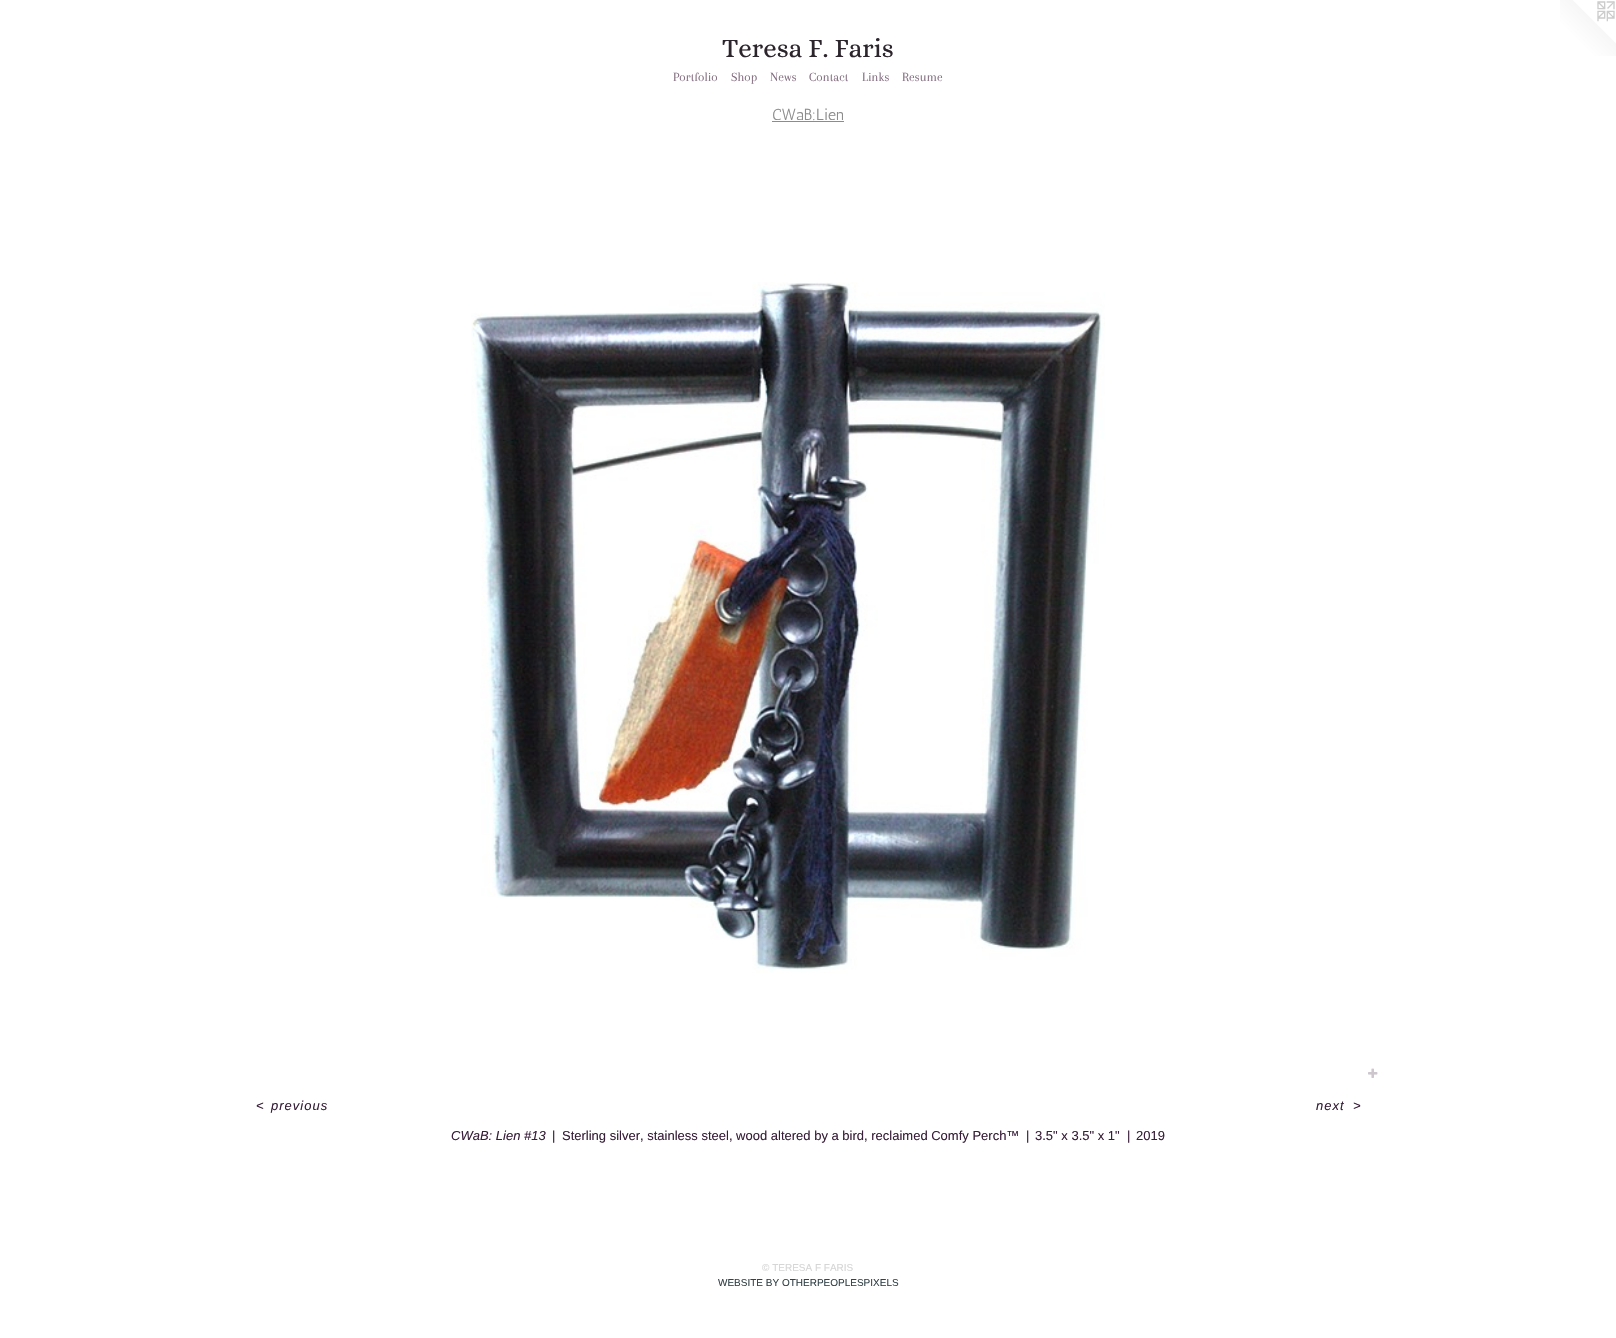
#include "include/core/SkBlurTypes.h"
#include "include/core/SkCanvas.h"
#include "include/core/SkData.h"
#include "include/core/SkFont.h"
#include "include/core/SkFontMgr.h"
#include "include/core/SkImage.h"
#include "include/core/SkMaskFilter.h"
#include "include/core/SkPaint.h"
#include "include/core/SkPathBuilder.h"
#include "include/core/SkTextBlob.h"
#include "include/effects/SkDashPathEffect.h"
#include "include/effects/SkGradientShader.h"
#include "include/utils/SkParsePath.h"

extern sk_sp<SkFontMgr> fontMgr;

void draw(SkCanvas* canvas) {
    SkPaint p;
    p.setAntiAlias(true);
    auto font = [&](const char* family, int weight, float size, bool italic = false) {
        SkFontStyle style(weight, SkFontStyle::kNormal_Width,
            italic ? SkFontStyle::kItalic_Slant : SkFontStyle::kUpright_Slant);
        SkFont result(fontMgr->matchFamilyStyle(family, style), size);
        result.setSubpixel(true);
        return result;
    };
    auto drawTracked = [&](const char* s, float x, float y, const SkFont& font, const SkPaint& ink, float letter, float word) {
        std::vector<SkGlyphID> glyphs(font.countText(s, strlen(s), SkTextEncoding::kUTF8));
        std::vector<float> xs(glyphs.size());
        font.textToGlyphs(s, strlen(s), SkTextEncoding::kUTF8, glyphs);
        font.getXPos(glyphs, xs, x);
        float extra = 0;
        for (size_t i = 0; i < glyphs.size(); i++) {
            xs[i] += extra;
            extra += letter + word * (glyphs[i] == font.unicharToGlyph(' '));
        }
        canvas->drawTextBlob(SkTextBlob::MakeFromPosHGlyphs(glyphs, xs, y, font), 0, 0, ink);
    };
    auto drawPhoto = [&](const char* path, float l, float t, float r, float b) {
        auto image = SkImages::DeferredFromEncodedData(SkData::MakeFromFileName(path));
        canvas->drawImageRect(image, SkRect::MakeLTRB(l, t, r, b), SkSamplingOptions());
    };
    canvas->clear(0xFFFFFFFF);
    auto font1 = font("Alice", 400, 27);
    p.setColor(0xFF2C262C);
    canvas->drawString("Teresa F. Faris", 722, 57, font1, p);
    drawPhoto("media/1.png", 1560, 0, 1616, 56);
    auto font2 = font("Arapey", 400, 13);
    p.setColor(0xFF836D7F);
    {
        const struct { const char* s; float x, y; } items[] = {
            {"Portfolio", 673, 81},
            {"Shop", 731, 81},
            {"News", 770, 81},
            {"Contact", 809, 81},
            {"Links", 862, 81},
            {"Resume", 902, 81},
        };
        for (auto [s, x, y] : items) {
            canvas->drawString(s, x, y, font2, p);
        }
    }
    auto font3 = font("Antic", 400, 16);
    p.setColor(0xFF8C8C8C);
    canvas->drawString("CWaB:Lien", 772, 120, font3, p);
    canvas->drawRect(SkRect::MakeLTRB(772, 121, 844, 122), p);
    drawPhoto("media/2.png", 471, 282, 1105, 973);
    drawPhoto("media/3.png", 1368, 1068, 1378, 1078);
    auto font4 = font("Liberation Sans", 400, 13, true);
    p.setColor(0xFF381E38);
    {
        const struct { const char* s; float x, y; } items[] = {
            {"<", 256, 1110},
            {"previous", 271, 1110},
            {"next", 1316, 1110},
            {">", 1353, 1110},
        };
        for (auto [s, x, y] : items) {
            drawTracked(s, x, y, font4, p, 1, 0);
        }
    }
    canvas->drawString("CWaB: Lien #13", 451, 1140, font4, p);
    auto font5 = font("Liberation Sans", 400, 13);
    {
        const struct { const char* s; float x, y; } items[] = {
            {"|", 552, 1140},
            {"Sterling silver, stainless steel, wood altered by a bird, reclaimed Comfy Perch™", 562, 1140},
            {"|", 1026, 1140},
            {"3.5\" x 3.5\" x 1\"", 1035, 1140},
            {"|", 1127, 1140},
            {"2019", 1136, 1140},
        };
        for (auto [s, x, y] : items) {
            canvas->drawString(s, x, y, font5, p);
        }
    }
    auto font6 = font("Liberation Sans", 400, 10);
    p.setColor(0xFFD6D6D6);
    canvas->drawString("© TERESA F FARIS", 762, 1271, font6, p);
    p.setColor(0xFF324248);
    canvas->drawString("WEBSITE BY OTHERPEOPLESPIXELS", 718, 1286, font6, p);
}
